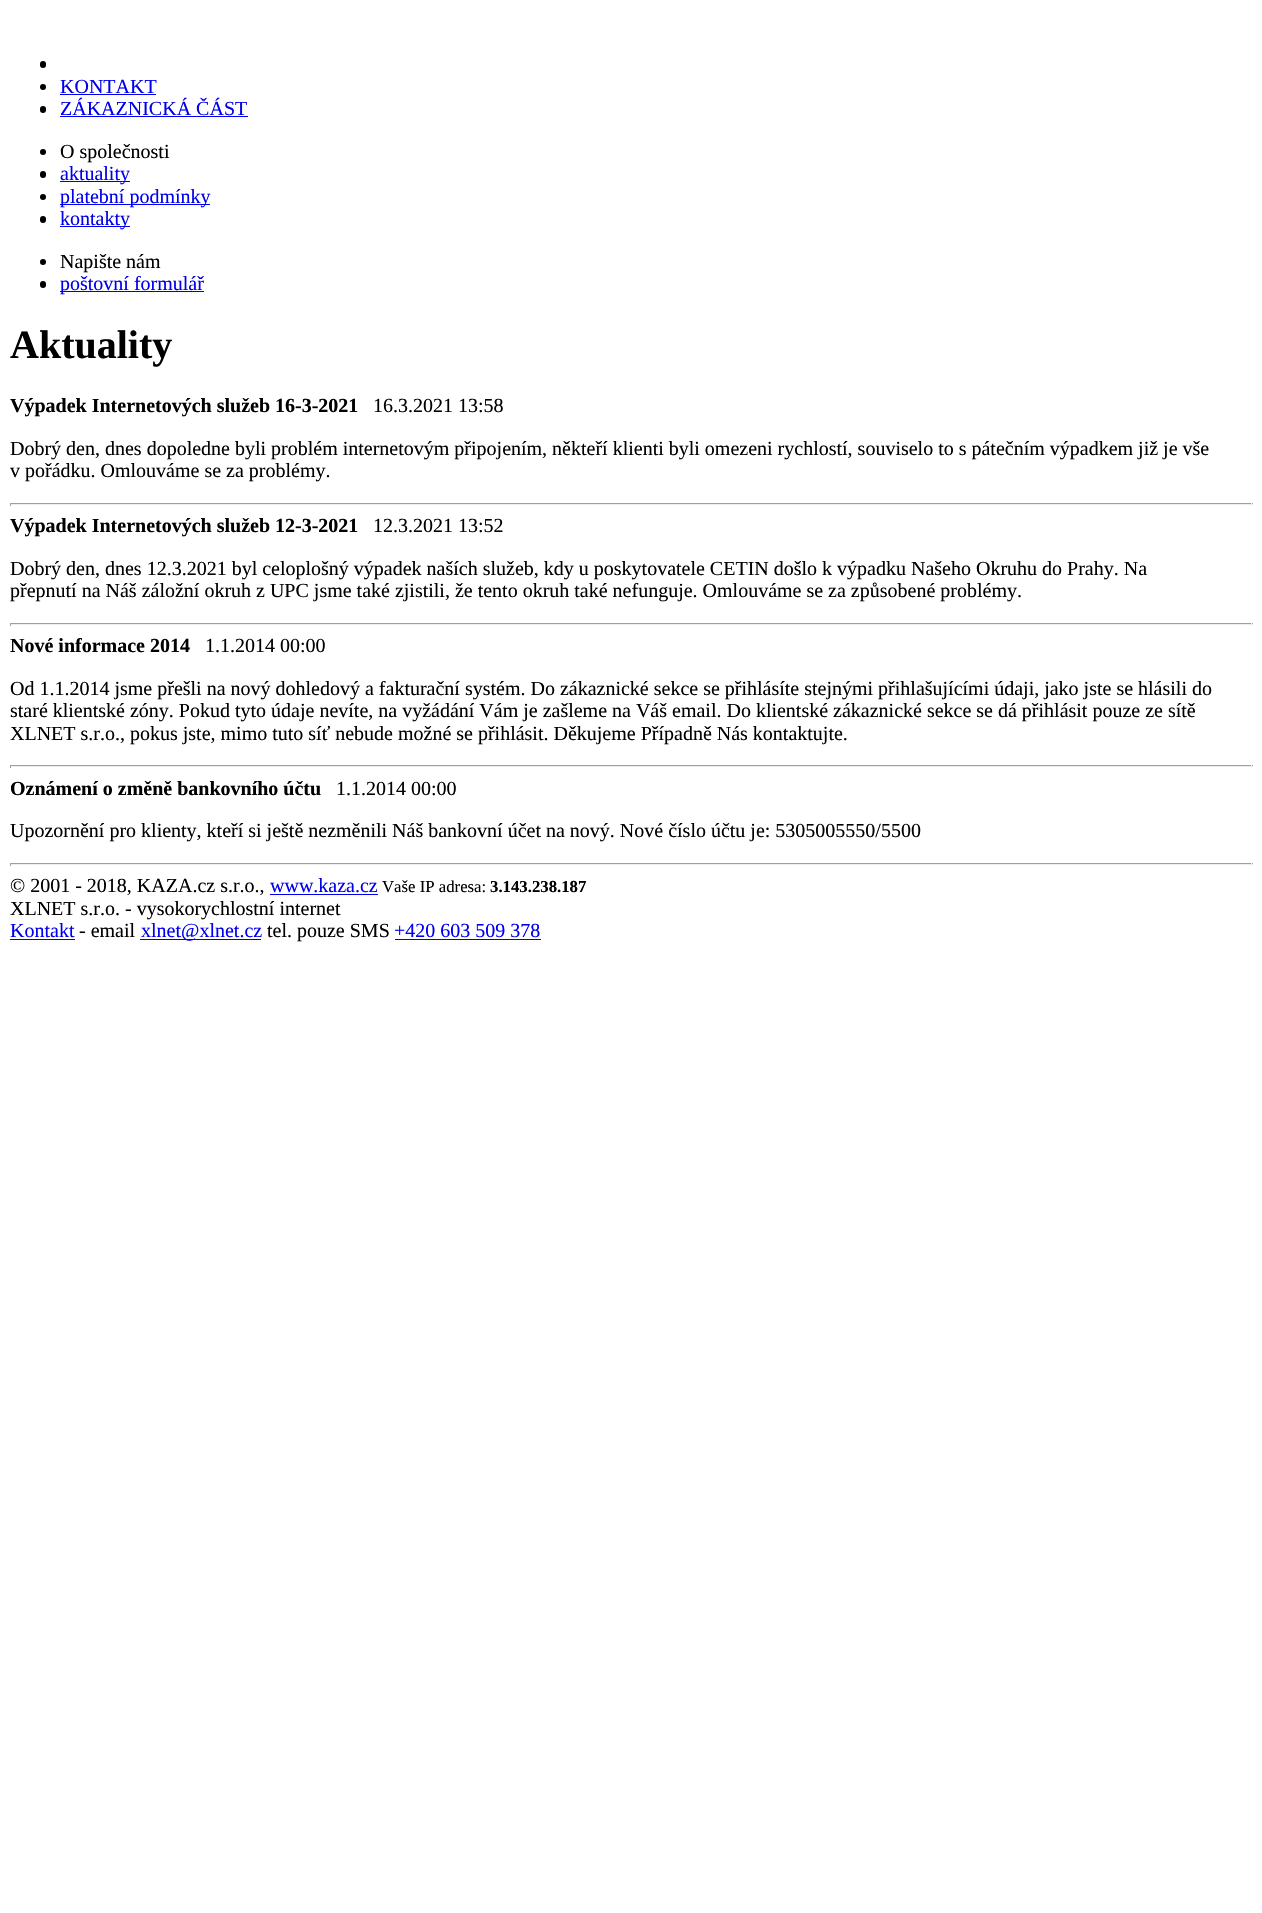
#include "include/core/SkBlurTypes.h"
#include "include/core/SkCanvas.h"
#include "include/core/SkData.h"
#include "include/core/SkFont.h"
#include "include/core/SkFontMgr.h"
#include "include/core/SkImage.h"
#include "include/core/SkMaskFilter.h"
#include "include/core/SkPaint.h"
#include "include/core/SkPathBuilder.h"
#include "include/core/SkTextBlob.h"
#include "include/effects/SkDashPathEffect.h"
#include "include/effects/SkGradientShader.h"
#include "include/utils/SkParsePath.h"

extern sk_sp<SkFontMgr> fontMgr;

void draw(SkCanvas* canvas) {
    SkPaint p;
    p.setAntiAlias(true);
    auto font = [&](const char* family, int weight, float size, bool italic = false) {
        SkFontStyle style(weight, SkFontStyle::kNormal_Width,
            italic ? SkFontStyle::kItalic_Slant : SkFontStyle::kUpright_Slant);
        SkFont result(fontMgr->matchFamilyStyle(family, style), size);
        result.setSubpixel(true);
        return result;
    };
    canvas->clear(0xFFFFFFFF);
    p.setColor(0xFF000000);
    canvas->drawRoundRect(SkRect::MakeLTRB(40, 61, 46, 68), 3, 3, p);
    canvas->drawCircle(43, 87, 3, p);
    auto font1 = font("Liberation Serif", 400, 20);
    p.setColor(0xFF0000EE);
    canvas->drawString("KONTAKT", 60, 93, font1, p);
    canvas->drawRect(SkRect::MakeLTRB(60, 94, 156, 95), p);
    p.setColor(0xFF000000);
    canvas->drawRoundRect(SkRect::MakeLTRB(40, 106, 46, 113), 3, 3, p);
    p.setColor(0xFF0000EE);
    canvas->drawString("ZÁKAZNICKÁ ČÁST", 60, 115, font1, p);
    canvas->drawRect(SkRect::MakeLTRB(60, 116, 248, 117), p);
    p.setColor(0xFF000000);
    canvas->drawCircle(43, 152, 3, p);
    canvas->drawString("O společnosti", 60, 158, font1, p);
    canvas->drawRoundRect(SkRect::MakeLTRB(40, 171, 46, 178), 3, 3, p);
    p.setColor(0xFF0000EE);
    canvas->drawRect(SkRect::MakeLTRB(60, 181, 130, 182), p);
    canvas->drawString("aktuality", 60, 180, font1, p);
    p.setColor(0xFF000000);
    canvas->drawCircle(43, 197, 3, p);
    p.setColor(0xFF0000EE);
    canvas->drawRect(SkRect::MakeLTRB(60, 204, 210, 205), p);
    canvas->drawString("platební podmínky", 60, 203, font1, p);
    p.setColor(0xFF000000);
    canvas->drawRoundRect(SkRect::MakeLTRB(40, 216, 46, 223), 3, 3, p);
    p.setColor(0xFF0000EE);
    canvas->drawRect(SkRect::MakeLTRB(60, 226, 130, 227), p);
    canvas->drawString("kontakty", 60, 225, font1, p);
    p.setColor(0xFF000000);
    canvas->drawCircle(43, 262, 3, p);
    canvas->drawString("Napište nám", 60, 268, font1, p);
    canvas->drawRoundRect(SkRect::MakeLTRB(40, 281, 46, 288), 3, 3, p);
    p.setColor(0xFF0000EE);
    canvas->drawRect(SkRect::MakeLTRB(60, 291, 204, 292), p);
    canvas->drawString("poštovní formulář", 60, 290, font1, p);
    auto font2 = font("Liberation Serif", 700, 40);
    p.setColor(0xFF000000);
    canvas->drawString("Aktuality", 10, 358, font2, p);
    auto font3 = font("Liberation Serif", 700, 20);
    canvas->drawString("Výpadek Internetových služeb 16-3-2021", 10, 412, font3, p);
    {
        const struct { const char* s; float x, y; } items[] = {
            {"16.3.2021 13:58", 373, 412},
            {"Dobrý den, dnes dopoledne byli problém internetovým připojením, někteří klienti byli omezeni rychlostí, souviselo to s pátečním výpadkem již je vše", 10, 455},
            {"v pořádku. Omlouváme se za problémy.", 10, 477},
        };
        for (auto [s, x, y] : items) {
            canvas->drawString(s, x, y, font1, p);
        }
    }
    {
        const struct { float l, t, r, b; SkColor color; } items[] = {
            {10, 503, 1253, 504, 0xFF9F9F9F},
            {1251, 503, 1252, 506, 0xFFEEEEEE},
            {10, 504, 1253, 505, 0xFFEEEEEE},
            {10, 503, 11, 506, 0xFF9F9F9F},
        };
        for (auto [l, t, r, b, color] : items) {
            p.setColor(color);
            canvas->drawRect(SkRect::MakeLTRB(l, t, r, b), p);
        }
    }
    p.setColor(0xFF000000);
    canvas->drawString("Výpadek Internetových služeb 12-3-2021", 10, 532, font3, p);
    {
        const struct { const char* s; float x, y; } items[] = {
            {"12.3.2021 13:52", 373, 532},
            {"Dobrý den, dnes 12.3.2021 byl celoplošný výpadek naších služeb, kdy u poskytovatele CETIN došlo k výpadku Našeho Okruhu do Prahy. Na", 10, 575},
            {"přepnutí na Náš záložní okruh z UPC jsme také zjistili, že tento okruh také nefunguje. Omlouváme se za způsobené problémy.", 10, 597},
        };
        for (auto [s, x, y] : items) {
            canvas->drawString(s, x, y, font1, p);
        }
    }
    {
        const struct { float l, t, r, b; SkColor color; } items[] = {
            {10, 623, 1253, 624, 0xFF9F9F9F},
            {1251, 623, 1252, 626, 0xFFEEEEEE},
            {10, 624, 1253, 625, 0xFFEEEEEE},
            {10, 623, 11, 626, 0xFF9F9F9F},
        };
        for (auto [l, t, r, b, color] : items) {
            p.setColor(color);
            canvas->drawRect(SkRect::MakeLTRB(l, t, r, b), p);
        }
    }
    p.setColor(0xFF000000);
    canvas->drawString("Nové informace 2014", 10, 652, font3, p);
    {
        const struct { const char* s; float x, y; } items[] = {
            {"1.1.2014 00:00", 205, 652},
            {"Od 1.1.2014 jsme přešli na nový dohledový a fakturační systém. Do zákaznické sekce se přihlásíte stejnými přihlašujícími údaji, jako jste se hlásili do", 10, 695},
            {"staré klientské zóny. Pokud tyto údaje nevíte, na vyžádání Vám je zašleme na Váš email. Do klientské zákaznické sekce se dá přihlásit pouze ze sítě", 10, 717},
            {"XLNET s.r.o., pokus jste, mimo tuto síť nebude možné se přihlásit. Děkujeme Případně Nás kontaktujte.", 10, 740},
        };
        for (auto [s, x, y] : items) {
            canvas->drawString(s, x, y, font1, p);
        }
    }
    {
        const struct { float l, t, r, b; SkColor color; } items[] = {
            {10, 765, 1253, 766, 0xFF9F9F9F},
            {1251, 765, 1252, 768, 0xFFEEEEEE},
            {10, 766, 1253, 767, 0xFFEEEEEE},
            {10, 765, 11, 768, 0xFF9F9F9F},
        };
        for (auto [l, t, r, b, color] : items) {
            p.setColor(color);
            canvas->drawRect(SkRect::MakeLTRB(l, t, r, b), p);
        }
    }
    p.setColor(0xFF000000);
    canvas->drawString("Oznámení o změně bankovního účtu", 10, 795, font3, p);
    canvas->drawString("1.1.2014 00:00", 336, 795, font1, p);
    canvas->drawString("Upozornění pro klienty, kteří si ještě nezměnili Náš bankovní účet na nový. Nové číslo účtu je: 5305005550/5500", 10, 837, font1, p);
    {
        const struct { float l, t, r, b; SkColor color; } items[] = {
            {10, 863, 1253, 864, 0xFF9F9F9F},
            {1251, 863, 1252, 866, 0xFFEEEEEE},
            {10, 864, 1253, 865, 0xFFEEEEEE},
            {10, 863, 11, 866, 0xFF9F9F9F},
        };
        for (auto [l, t, r, b, color] : items) {
            p.setColor(color);
            canvas->drawRect(SkRect::MakeLTRB(l, t, r, b), p);
        }
    }
    p.setColor(0xFF000000);
    canvas->drawString("© 2001 - 2018, KAZA.cz s.r.o.,", 10, 892, font1, p);
    p.setColor(0xFF0000EE);
    canvas->drawString("www.kaza.cz", 270, 892, font1, p);
    canvas->drawRect(SkRect::MakeLTRB(270, 894, 378, 895), p);
    auto font4 = font("Liberation Serif", 400, 16.75f);
    p.setColor(0xFF000000);
    canvas->drawString("Vaše IP adresa:", 382, 892, font4, p);
    auto font5 = font("Liberation Serif", 700, 16.75f);
    canvas->drawString("3.143.238.187", 490, 892, font5, p);
    canvas->drawString("XLNET s.r.o. - vysokorychlostní internet", 10, 915, font1, p);
    p.setColor(0xFF0000EE);
    canvas->drawString("Kontakt", 10, 937, font1, p);
    canvas->drawRect(SkRect::MakeLTRB(10, 939, 75, 940), p);
    p.setColor(0xFF000000);
    canvas->drawString("- email", 79, 937, font1, p);
    p.setColor(0xFF0000EE);
    canvas->drawRect(SkRect::MakeLTRB(140, 939, 261, 940), p);
    canvas->drawString("xlnet@xlnet.cz", 141, 937, font1, p);
    p.setColor(0xFF000000);
    canvas->drawString("tel. pouze SMS", 267, 937, font1, p);
    p.setColor(0xFF0000EE);
    canvas->drawString("+420 603 509 378", 394, 937, font1, p);
    canvas->drawRect(SkRect::MakeLTRB(395, 939, 541, 940), p);
}
